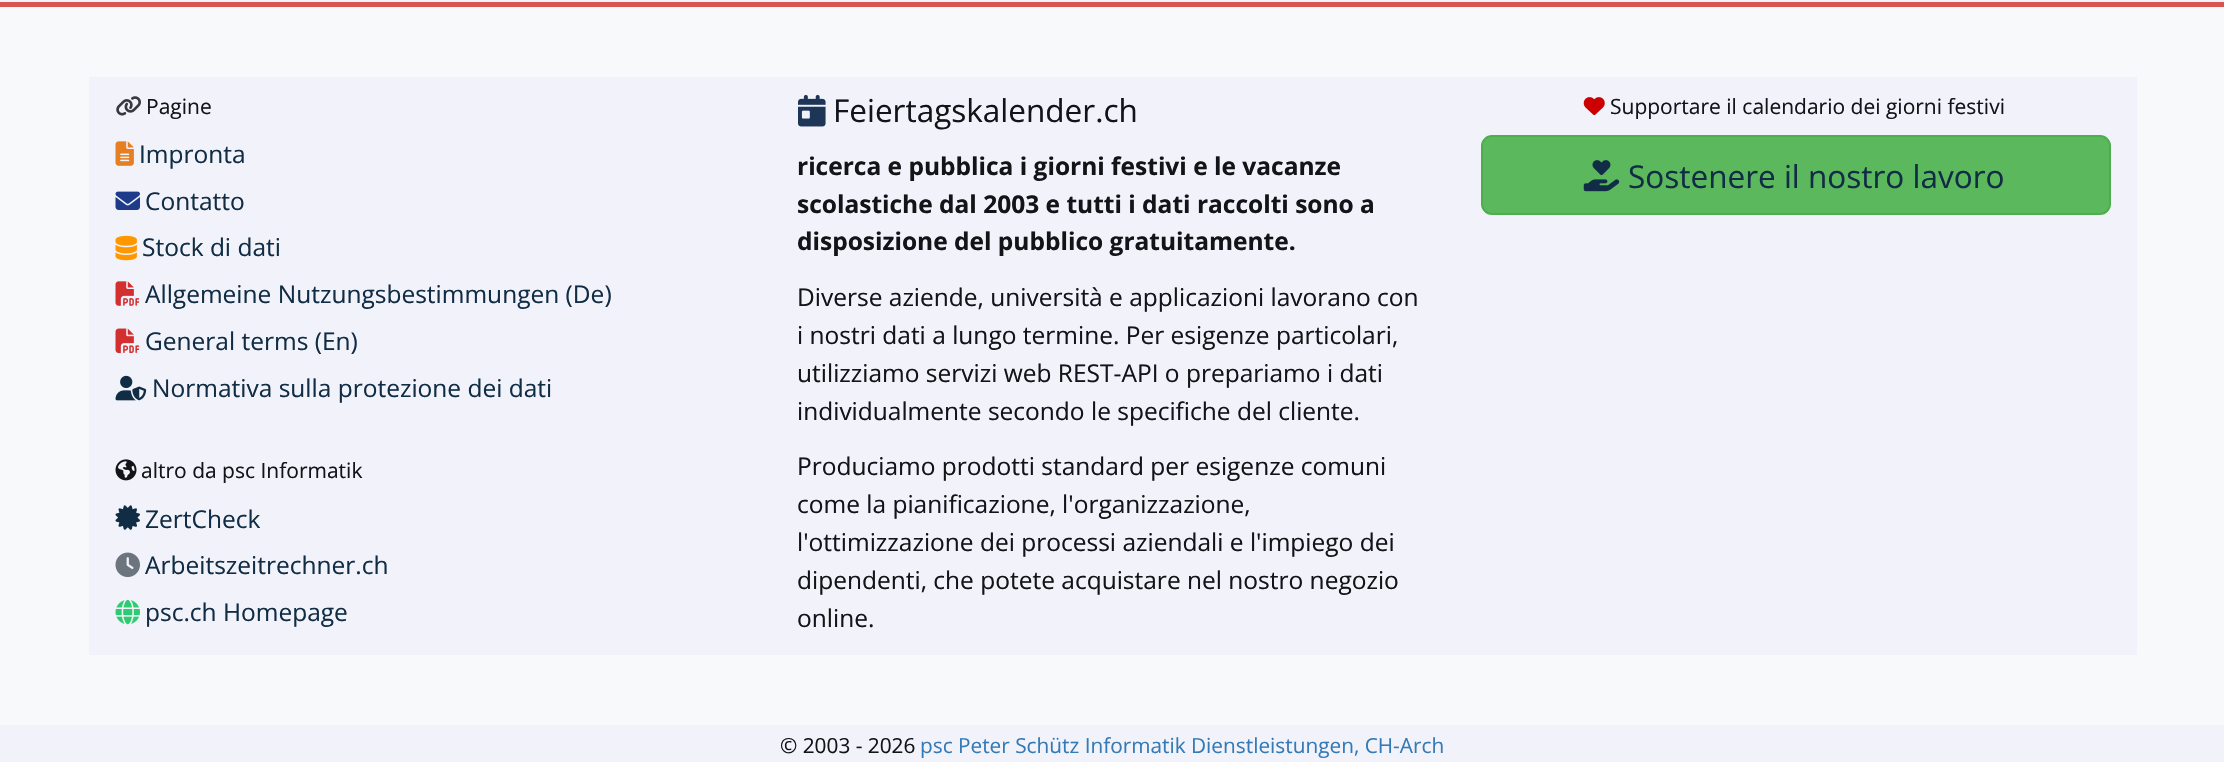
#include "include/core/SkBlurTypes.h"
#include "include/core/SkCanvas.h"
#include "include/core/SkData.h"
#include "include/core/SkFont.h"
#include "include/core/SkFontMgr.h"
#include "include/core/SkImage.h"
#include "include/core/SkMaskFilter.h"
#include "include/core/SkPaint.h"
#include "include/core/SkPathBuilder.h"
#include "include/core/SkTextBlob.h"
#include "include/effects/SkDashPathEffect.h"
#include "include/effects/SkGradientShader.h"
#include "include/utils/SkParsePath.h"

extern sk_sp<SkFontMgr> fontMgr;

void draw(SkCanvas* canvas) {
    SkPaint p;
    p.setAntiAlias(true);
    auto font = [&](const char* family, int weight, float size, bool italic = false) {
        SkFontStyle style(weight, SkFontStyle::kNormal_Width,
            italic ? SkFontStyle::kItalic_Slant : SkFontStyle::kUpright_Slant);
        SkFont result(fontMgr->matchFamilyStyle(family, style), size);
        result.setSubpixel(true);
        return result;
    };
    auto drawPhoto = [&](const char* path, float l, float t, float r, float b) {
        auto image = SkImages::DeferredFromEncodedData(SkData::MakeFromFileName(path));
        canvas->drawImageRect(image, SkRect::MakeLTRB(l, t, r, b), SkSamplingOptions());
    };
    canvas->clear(0xFFF2F3FA);
    {
        const struct { float l, t, r, b; SkColor color; } items[] = {
            {0, 7, 2224, 725, 0xFFF8F9FA},
            {0, 2, 2224, 7, 0xFFD9534F},
            {89, 77, 2137, 655, 0xFFF2F3FA},
        };
        for (auto [l, t, r, b, color] : items) {
            p.setColor(color);
            canvas->drawRect(SkRect::MakeLTRB(l, t, r, b), p);
        }
    }
    drawPhoto("media/1.png", 116, 96, 141, 116);
    auto font1 = font("Open Sans", 400, 21);
    p.setColor(0xFF121518);
    canvas->drawString("Pagine", 146, 114, font1, p);
    drawPhoto("media/2.png", 115, 141, 134, 166);
    auto font2 = font("Open Sans", 400, 24.5f);
    p.setColor(0xFF112D45);
    canvas->drawString("Impronta", 139, 163, font2, p);
    drawPhoto("media/3.png", 115, 191, 140, 210);
    canvas->drawString("Contatto", 145, 210, font2, p);
    drawPhoto("media/4.png", 115, 235, 137, 261);
    canvas->drawString("Stock di dati", 142, 256, font2, p);
    drawPhoto("media/5.png", 115, 281, 140, 306);
    canvas->drawString("Allgemeine Nutzungsbestimmungen (De)", 145, 303, font2, p);
    drawPhoto("media/6.png", 115, 328, 140, 354);
    canvas->drawString("General terms (En)", 145, 350, font2, p);
    drawPhoto("media/7.png", 115, 375, 147, 401);
    canvas->drawString("Normativa sulla protezione dei dati", 152, 397, font2, p);
    drawPhoto("media/8.png", 115, 459, 137, 481);
    p.setColor(0xFF121518);
    canvas->drawString("altro da psc Informatik", 141, 478, font1, p);
    drawPhoto("media/9.png", 115, 505, 140, 530);
    p.setColor(0xFF112D45);
    canvas->drawString("ZertCheck", 145, 528, font2, p);
    drawPhoto("media/10.png", 115, 552, 140, 578);
    canvas->drawString("Arbeitszeitrechner.ch", 145, 574, font2, p);
    drawPhoto("media/11.png", 115, 599, 140, 625);
    canvas->drawString("psc.ch Homepage", 145, 621, font2, p);
    drawPhoto("media/12.png", 798, 94, 826, 127);
    auto font3 = font("Open Sans", 400, 31.5f);
    p.setColor(0xFF121518);
    canvas->drawString("Feiertagskalender.ch", 833, 122, font3, p);
    auto font4 = font("Open Sans", 700, 24.5f);
    {
        const struct { const char* s; float x, y; } items[] = {
            {"ricerca e pubblica i giorni festivi e le vacanze", 797, 175},
            {"scolastiche dal 2003 e tutti i dati raccolti sono a", 797, 213},
            {"disposizione del pubblico gratuitamente.", 797, 250},
        };
        for (auto [s, x, y] : items) {
            canvas->drawString(s, x, y, font4, p);
        }
    }
    {
        const struct { const char* s; float x, y; } items[] = {
            {"Diverse aziende, università e applicazioni lavorano con", 797, 306},
            {"i nostri dati a lungo termine. Per esigenze particolari,", 797, 344},
            {"utilizziamo servizi web REST-API o prepariamo i dati", 797, 382},
            {"individualmente secondo le specifiche del cliente.", 797, 420},
            {"Produciamo prodotti standard per esigenze comuni", 797, 475},
            {"come la pianificazione, l'organizzazione,", 797, 513},
            {"l'ottimizzazione dei processi aziendali e l'impiego dei", 797, 551},
            {"dipendenti, che potete acquistare nel nostro negozio", 797, 589},
            {"online.", 797, 627},
        };
        for (auto [s, x, y] : items) {
            canvas->drawString(s, x, y, font2, p);
        }
    }
    drawPhoto("media/13.png", 1583, 97, 1605, 115);
    canvas->drawString("Supportare il calendario dei giorni festivi", 1610, 114, font1, p);
    p.setColor(0xFF5CB85C);
    canvas->drawRoundRect(SkRect::MakeLTRB(1482, 136, 2110, 214), 10, 10, p);
    p.setStyle(SkPaint::kStroke_Style);
    p.setStrokeWidth(2);
    p.setColor(0xFF4CAE4C);
    canvas->drawRoundRect(SkRect::MakeLTRB(1482, 136, 2110, 214), 10, 10, p);
    drawPhoto("media/14.png", 1583, 160, 1620, 192);
    p.setStyle(SkPaint::kFill_Style);
    p.setColor(0xFF112D45);
    canvas->drawString("Sostenere il nostro lavoro", 1628, 188, font3, p);
    auto font5 = font("Open Sans", 400, 20.8f);
    p.setColor(0xFF121518);
    canvas->drawString("© 2003 - 2026", 780, 753, font5, p);
    p.setColor(0xFF337AB7);
    canvas->drawString("psc Peter Schütz Informatik Dienstleistungen, CH-Arch", 920, 753, font5, p);
}
